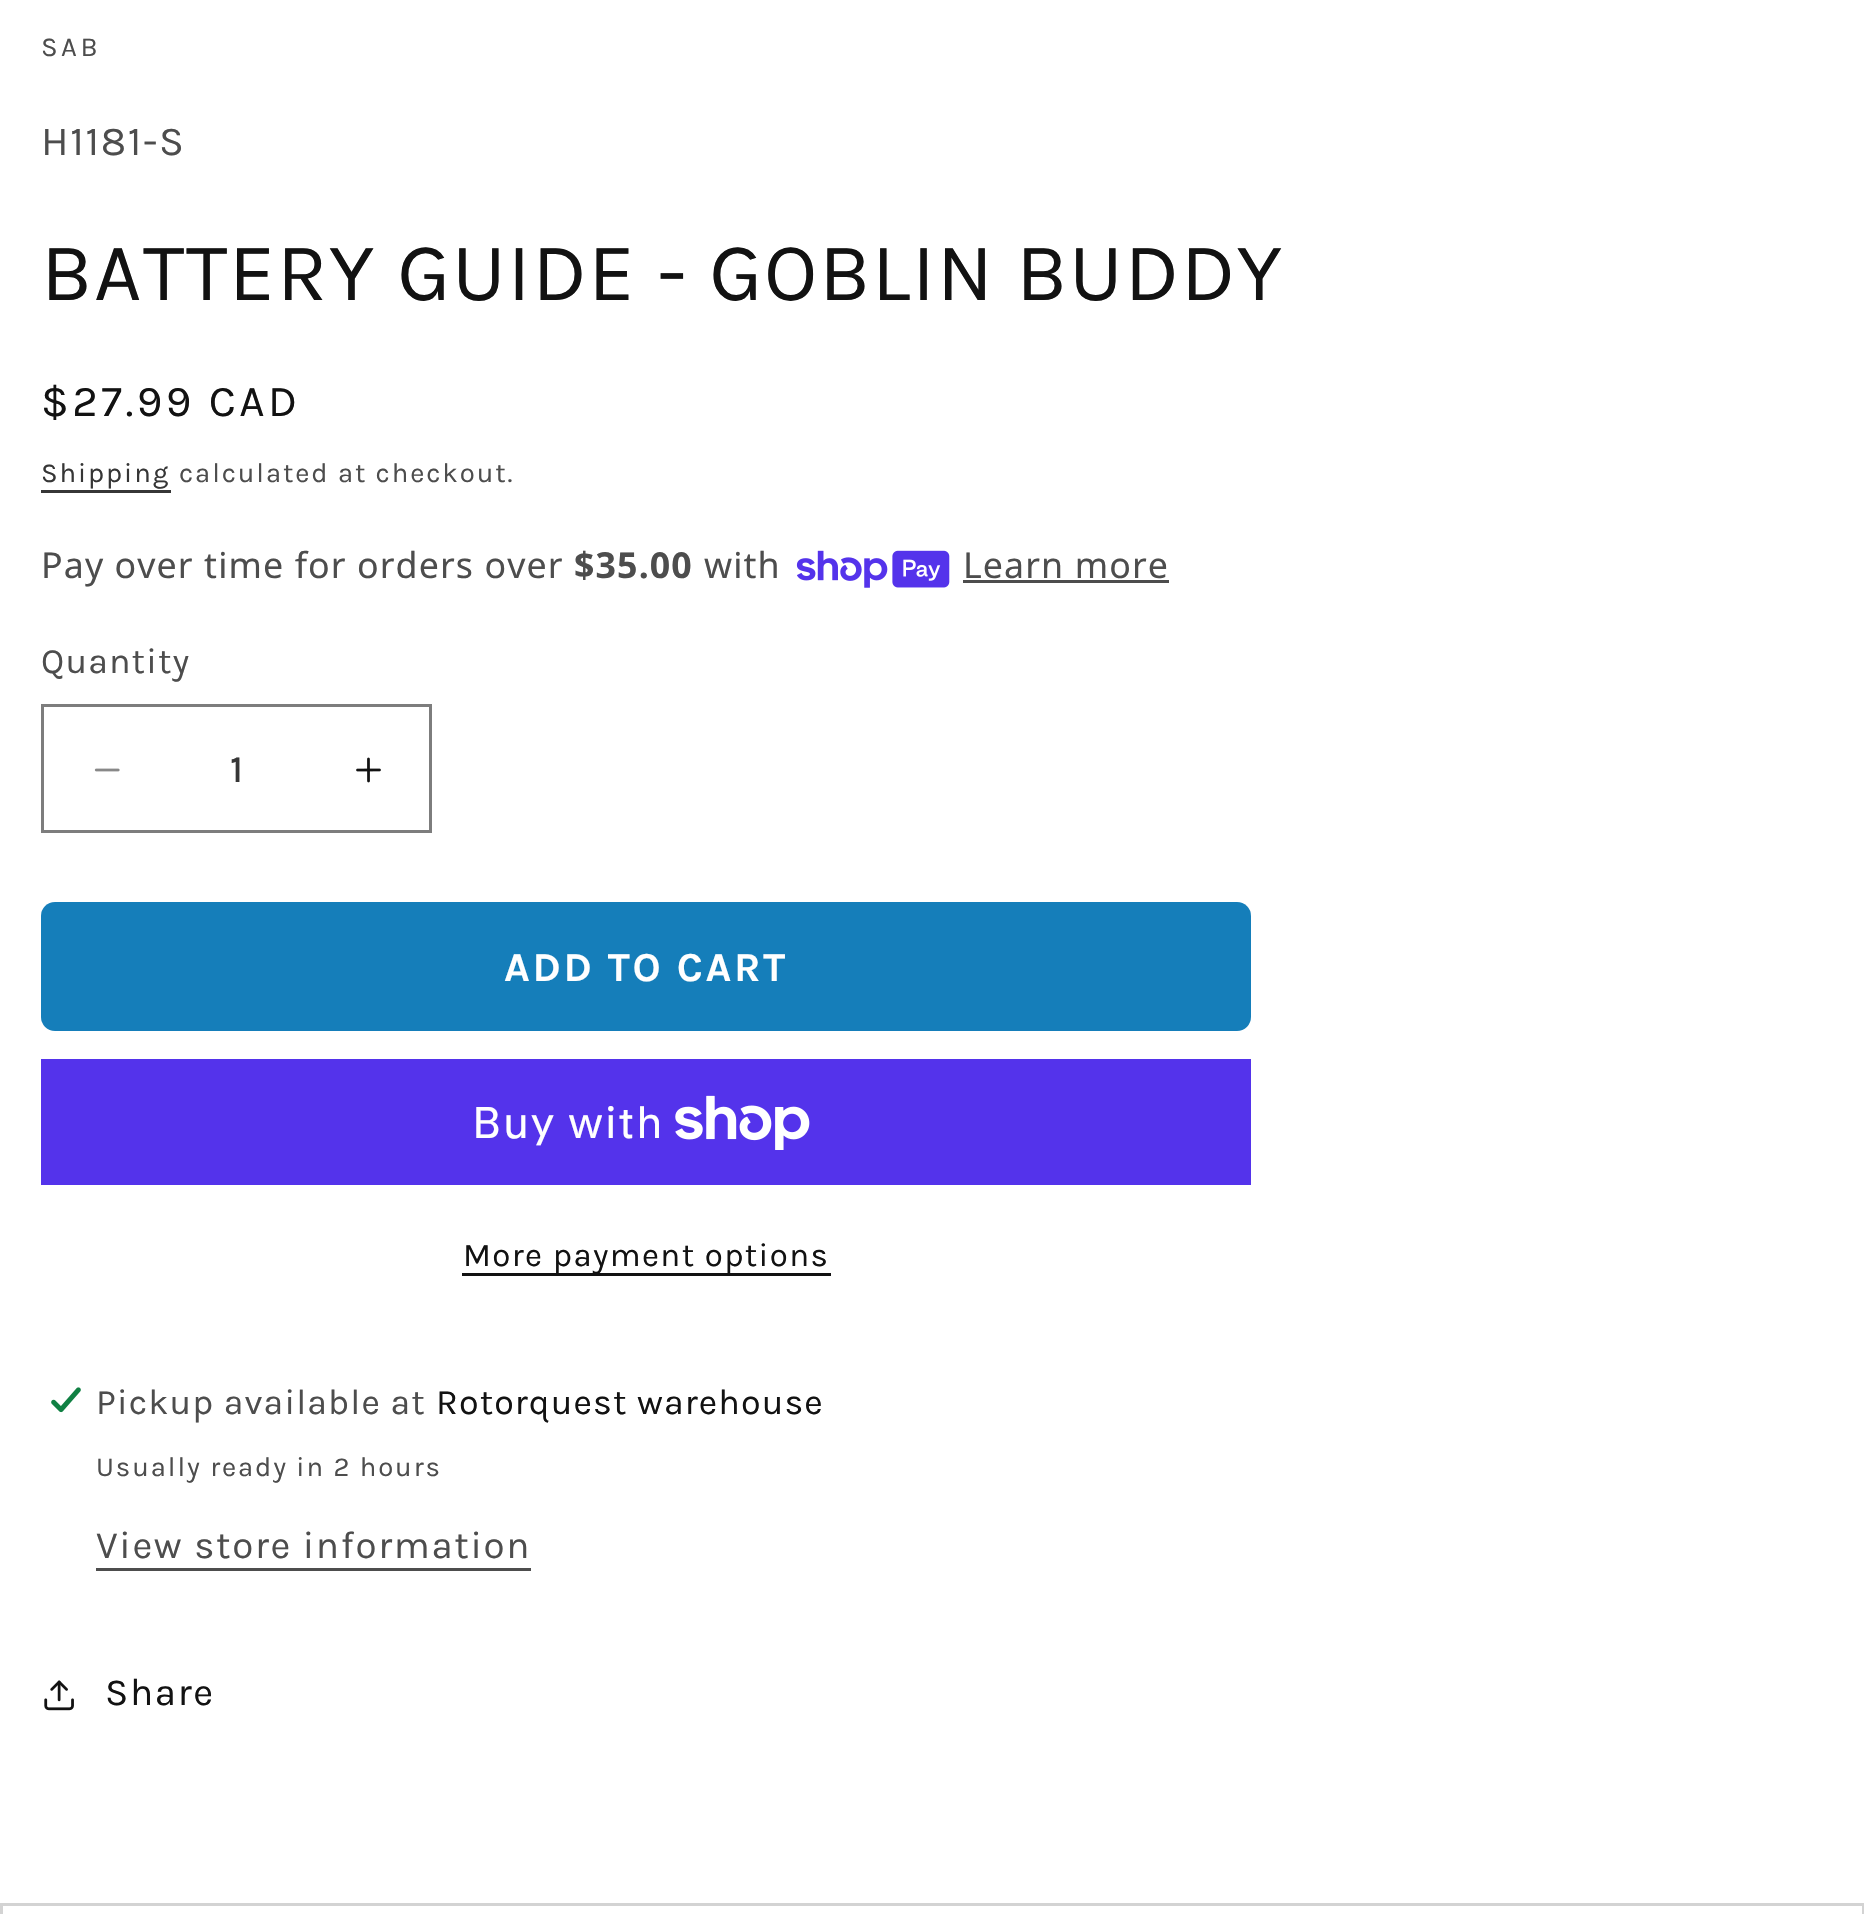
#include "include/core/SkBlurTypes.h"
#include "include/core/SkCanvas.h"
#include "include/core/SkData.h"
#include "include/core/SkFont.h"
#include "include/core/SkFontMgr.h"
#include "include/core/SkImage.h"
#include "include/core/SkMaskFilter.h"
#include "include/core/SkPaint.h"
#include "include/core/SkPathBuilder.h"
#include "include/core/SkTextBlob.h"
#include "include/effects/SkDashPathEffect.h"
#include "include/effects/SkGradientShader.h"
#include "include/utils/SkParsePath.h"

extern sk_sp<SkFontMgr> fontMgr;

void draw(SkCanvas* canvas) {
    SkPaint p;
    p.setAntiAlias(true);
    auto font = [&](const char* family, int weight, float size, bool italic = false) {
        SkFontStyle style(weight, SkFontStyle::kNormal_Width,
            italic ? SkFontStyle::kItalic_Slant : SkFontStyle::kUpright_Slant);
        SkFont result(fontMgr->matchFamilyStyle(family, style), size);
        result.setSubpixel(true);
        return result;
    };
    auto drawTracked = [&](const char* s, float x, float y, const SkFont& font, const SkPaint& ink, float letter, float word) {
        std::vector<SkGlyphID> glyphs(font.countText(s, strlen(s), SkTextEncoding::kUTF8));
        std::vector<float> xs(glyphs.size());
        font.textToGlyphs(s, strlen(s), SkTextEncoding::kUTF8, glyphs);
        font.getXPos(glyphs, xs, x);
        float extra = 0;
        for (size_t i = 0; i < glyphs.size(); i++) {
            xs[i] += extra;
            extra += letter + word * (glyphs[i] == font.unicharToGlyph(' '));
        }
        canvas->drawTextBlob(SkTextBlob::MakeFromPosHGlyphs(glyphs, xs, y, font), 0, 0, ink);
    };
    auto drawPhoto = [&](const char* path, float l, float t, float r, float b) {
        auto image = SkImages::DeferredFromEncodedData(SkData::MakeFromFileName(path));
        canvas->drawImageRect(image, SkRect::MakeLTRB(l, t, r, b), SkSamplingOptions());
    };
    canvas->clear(0xFFFFFFFF);
    auto font1 = font("Karla", 400, 27.5f);
    p.setColor(0xFF4D4D4D);
    drawTracked("SAB", 41, 56, font1, p, 3.5f, 0);
    auto font2 = font("Karla", 400, 41.25f);
    drawTracked("H1181-S", 41, 155, font2, p, 1.65f, 0);
    auto font3 = font("Karla", 400, 82.5f);
    p.setColor(0xFF121212);
    drawTracked("BATTERY GUIDE - GOBLIN BUDDY", 41, 300, font3, p, 1.65f, 0);
    auto font4 = font("Karla", 400, 44);
    drawTracked("$27.99 CAD", 41, 416, font4, p, 3.5f, 0);
    p.setColor(0xFF363636);
    drawTracked("Shipping", 41, 482, font1, p, 1.9f, 0);
    canvas->drawRect(SkRect::MakeLTRB(41, 490, 171, 493), p);
    p.setColor(0xFF4D4D4D);
    drawTracked("calculated at checkout.", 179, 482, font1, p, 1.9f, 0);
    auto font5 = font("Noto Sans", 400, 35.75f);
    drawTracked("Pay over time for orders over", 41, 578, font5, p, 1.1f, 0);
    auto font6 = font("Noto Sans", 700, 35.75f);
    drawTracked("$35.00", 574, 578, font6, p, 1.1f, 0);
    drawTracked("with", 704, 578, font5, p, 1.1f, 0);
    drawPhoto("media/1.png", 796, 550, 950, 588);
    drawTracked("Learn more", 963, 578, font5, p, 1.1f, 0);
    canvas->drawRect(SkRect::MakeLTRB(963, 580, 1169, 583), p);
    auto font7 = font("Karla", 400, 35.75f);
    drawTracked("Quantity", 41, 673, font7, p, 1.1f, 0);
    drawPhoto("media/2.png", 94, 768, 120, 772);
    drawPhoto("media/3.png", 356, 757, 381, 783);
    p.setStyle(SkPaint::kStroke_Style);
    p.setStrokeWidth(3);
    p.setColor(0xFF7D7D7D);
    canvas->drawRect(SkRect::MakeLTRB(42.5f, 705.5f, 430.5f, 831.5f), p);
    auto font8 = font("Karla", 500, 38.5f);
    p.setStyle(SkPaint::kFill_Style);
    p.setColor(0xFF363636);
    canvas->drawString("1", 230, 782, font8, p);
    p.setColor(0xFF157EBA);
    canvas->drawRoundRect(SkRect::MakeLTRB(41, 902, 1251, 1031), 14, 14, p);
    auto font9 = font("Karla", 700, 41.25f);
    p.setColor(0xFFFFFFFF);
    drawTracked("ADD TO CART", 504, 981, font9, p, 2.75f, 0);
    p.setColor(0xFF5433EB);
    canvas->drawRect(SkRect::MakeLTRB(41, 1059, 1251, 1185), p);
    auto font10 = font("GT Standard", 400, 44);
    p.setColor(0xFFFFFFFF);
    drawTracked("Buy with", 472, 1138, font10, p, 1.65f, 0);
    drawPhoto("media/4.png", 675, 1095, 810, 1150);
    p.setColor(0xFF121212);
    canvas->drawRect(SkRect::MakeLTRB(462, 1273, 831, 1276), p);
    auto font11 = font("Karla", 400, 33);
    drawTracked("More payment options", 463, 1266, font11, p, 1.4f, 0);
    drawPhoto("media/5.png", 51, 1387, 81, 1413);
    p.setColor(0xFF4D4D4D);
    drawTracked("Pickup available at", 96, 1414, font7, p, 1.1f, 0);
    p.setColor(0xFF121212);
    drawTracked("Rotorquest warehouse", 436, 1414, font7, p, 1.1f, 0);
    p.setColor(0xFF4D4D4D);
    drawTracked("Usually ready in 2 hours", 96, 1476, font1, p, 1.9f, 0);
    auto font12 = font("Karla", 400, 38.5f);
    drawTracked("View store information", 96, 1558, font12, p, 1.65f, 0);
    canvas->drawRect(SkRect::MakeLTRB(96, 1568, 531, 1571), p);
    drawPhoto("media/6.png", 44, 1680, 74, 1711);
    p.setColor(0xFF121212);
    drawTracked("Share", 105, 1705, font12, p, 1.65f, 0);
    p.setStyle(SkPaint::kStroke_Style);
    p.setColor(0xFFD3D3D3);
    canvas->drawRect(SkRect::MakeLTRB(1.5f, 1904.5f, 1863.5f, 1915.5f), p);
}
